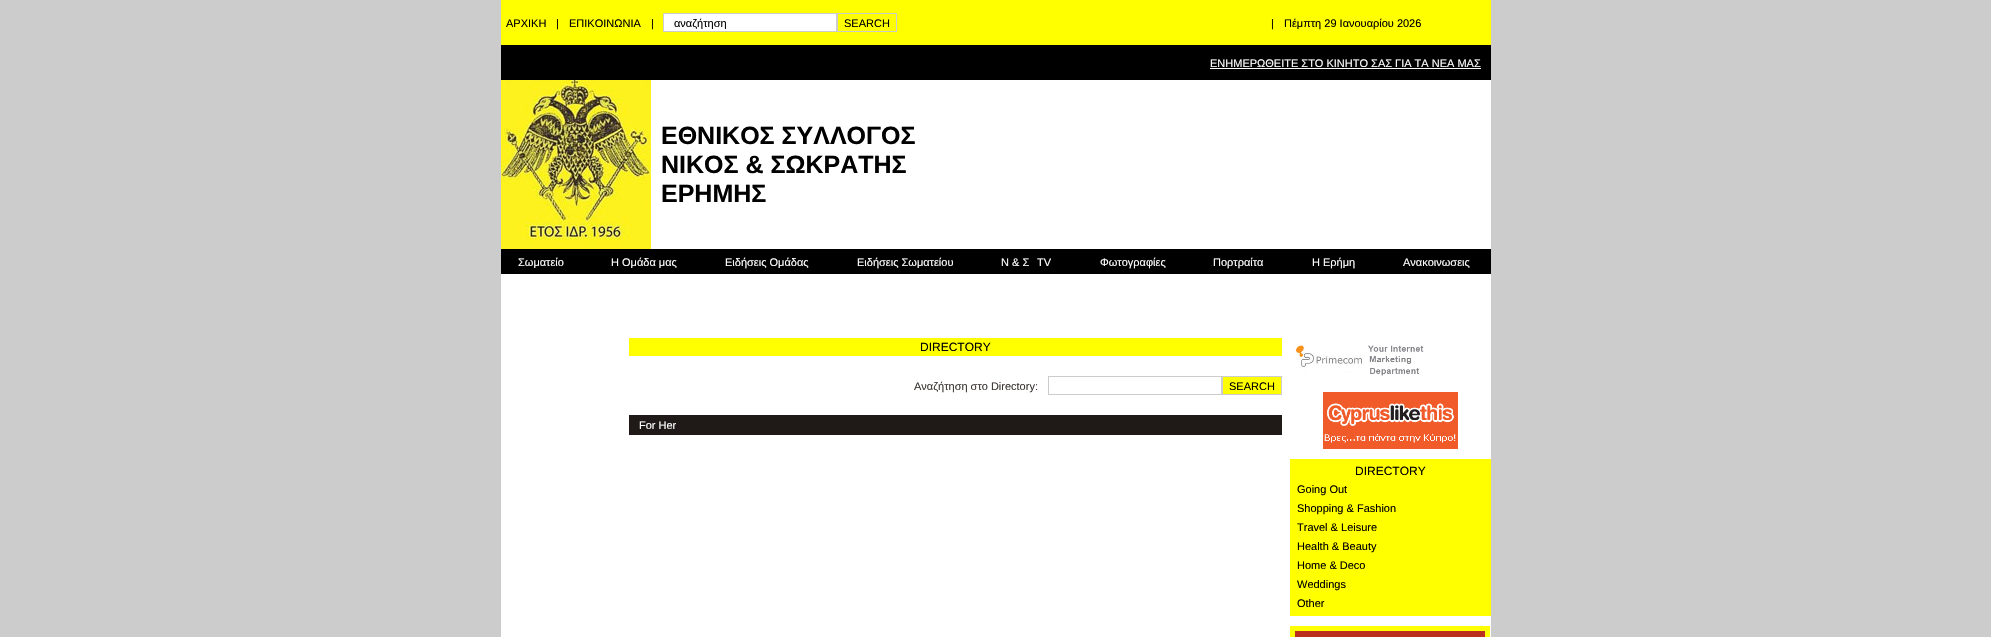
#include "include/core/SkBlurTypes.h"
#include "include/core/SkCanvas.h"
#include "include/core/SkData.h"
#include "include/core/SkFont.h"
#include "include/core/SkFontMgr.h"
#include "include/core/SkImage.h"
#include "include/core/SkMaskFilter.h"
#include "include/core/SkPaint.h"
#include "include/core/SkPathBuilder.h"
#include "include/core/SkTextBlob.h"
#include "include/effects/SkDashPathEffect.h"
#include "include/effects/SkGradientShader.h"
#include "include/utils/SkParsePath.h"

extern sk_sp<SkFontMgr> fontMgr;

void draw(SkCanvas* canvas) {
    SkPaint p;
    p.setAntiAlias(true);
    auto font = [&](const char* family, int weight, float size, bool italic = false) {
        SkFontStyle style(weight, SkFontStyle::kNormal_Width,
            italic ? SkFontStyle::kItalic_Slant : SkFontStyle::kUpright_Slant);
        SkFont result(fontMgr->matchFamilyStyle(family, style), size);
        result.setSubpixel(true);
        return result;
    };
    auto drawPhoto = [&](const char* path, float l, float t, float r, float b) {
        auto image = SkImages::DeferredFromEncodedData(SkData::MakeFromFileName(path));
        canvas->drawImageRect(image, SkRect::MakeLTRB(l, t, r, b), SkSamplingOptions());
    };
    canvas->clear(0xFFCCCCCC);
    p.setColor(0xFFFFFFFF);
    canvas->drawRect(SkRect::MakeLTRB(501, 80, 1491, 637), p);
    p.setColor(0xFFFFFF00);
    canvas->drawRect(SkRect::MakeLTRB(501, 0, 1491, 45), p);
    auto font1 = font("Liberation Sans", 400, 11);
    p.setColor(0xFF000000);
    {
        const struct { const char* s; float x, y; } items[] = {
            {"ΑΡΧΙΚΗ", 506, 27},
            {"|", 556, 27},
            {"ΕΠΙΚΟΙΝΩΝΙΑ", 569, 27},
            {"|", 651, 27},
        };
        for (auto [s, x, y] : items) {
            canvas->drawString(s, x, y, font1, p);
        }
    }
    p.setColor(0xFFFFFFFF);
    canvas->drawRect(SkRect::MakeLTRB(663.5f, 13.5f, 836.5f, 31.5f), p);
    p.setStyle(SkPaint::kStroke_Style);
    p.setStrokeWidth(1);
    p.setColor(0xFFCCCCCC);
    canvas->drawRect(SkRect::MakeLTRB(663.5f, 13.5f, 836.5f, 31.5f), p);
    canvas->save();
    canvas->clipRect(SkRect::MakeLTRB(674, 17, 834, 29));
    p.setStyle(SkPaint::kFill_Style);
    p.setColor(0xFF000000);
    canvas->drawString("αναζήτηση", 674, 27, font1, p);
    canvas->restore();
    p.setStyle(SkPaint::kStroke_Style);
    p.setColor(0xFFCCCCCC);
    canvas->drawRect(SkRect::MakeLTRB(837.5f, 13.5f, 896.5f, 31.5f), p);
    p.setStyle(SkPaint::kFill_Style);
    p.setColor(0xFF000000);
    {
        const struct { const char* s; float x, y; } items[] = {
            {"SEARCH", 844, 27},
            {"|", 1271, 27},
            {"Πέμπτη 29 Ιανουαρίου 2026", 1284, 27},
        };
        for (auto [s, x, y] : items) {
            canvas->drawString(s, x, y, font1, p);
        }
    }
    canvas->drawRect(SkRect::MakeLTRB(501, 45, 1491, 80), p);
    p.setColor(0xFFFFFFFF);
    canvas->drawString("ΕΝΗΜΕΡΩΘΕΙΤΕ ΣΤΟ ΚΙΝΗΤΟ ΣΑΣ ΓΙΑ ΤΑ ΝΕΑ ΜΑΣ", 1210, 67, font1, p);
    canvas->drawRect(SkRect::MakeLTRB(1210, 68, 1481, 69), p);
    drawPhoto("media/1.png", 501, 80, 651, 249);
    auto font2 = font("Liberation Sans", 700, 25);
    p.setColor(0xFF000000);
    {
        const struct { const char* s; float x, y; } items[] = {
            {"ΕΘΝΙΚΟΣ ΣΥΛΛΟΓΟΣ", 661, 144},
            {"ΝΙΚΟΣ & ΣΩΚΡΑΤΗΣ", 661, 173},
            {"ΕΡΗΜΗΣ", 661, 202},
        };
        for (auto [s, x, y] : items) {
            canvas->drawString(s, x, y, font2, p);
        }
    }
    canvas->drawRect(SkRect::MakeLTRB(501, 249, 1491, 274), p);
    p.setColor(0xFFFFFFFF);
    {
        const struct { const char* s; float x, y; } items[] = {
            {"Σωματείο", 518, 266},
            {"Η Ομάδα μας", 611, 266},
            {"Ειδήσεις Ομάδας", 725, 266},
            {"Ειδήσεις Σωματείου", 857, 266},
            {"Ν & Σ", 1001, 266},
            {"TV", 1037, 266},
            {"Φωτογραφίες", 1100, 266},
            {"Πορτραίτα", 1213, 266},
            {"Η Ερήμη", 1312, 266},
            {"Ανακοινωσεις", 1403, 266},
        };
        for (auto [s, x, y] : items) {
            canvas->drawString(s, x, y, font1, p);
        }
    }
    p.setColor(0xFFFFFF00);
    canvas->drawRect(SkRect::MakeLTRB(629, 338, 1282, 356), p);
    auto font3 = font("Liberation Sans", 400, 12);
    p.setColor(0xFF000000);
    canvas->drawString("DIRECTORY", 920, 351, font3, p);
    p.setColor(0xFF3B3634);
    canvas->drawString("Αναζήτηση στο Directory:", 914, 390, font1, p);
    p.setStyle(SkPaint::kStroke_Style);
    p.setColor(0xFFCCCCCC);
    canvas->drawRect(SkRect::MakeLTRB(1048.5f, 376.5f, 1221.5f, 394.5f), p);
    p.setStyle(SkPaint::kFill_Style);
    p.setColor(0xFFFFFF00);
    canvas->drawRect(SkRect::MakeLTRB(1222.5f, 376.5f, 1281.5f, 394.5f), p);
    p.setStyle(SkPaint::kStroke_Style);
    p.setColor(0xFFCCCCCC);
    canvas->drawRect(SkRect::MakeLTRB(1222.5f, 376.5f, 1281.5f, 394.5f), p);
    p.setStyle(SkPaint::kFill_Style);
    p.setColor(0xFF000000);
    canvas->drawString("SEARCH", 1229, 390, font1, p);
    p.setColor(0xFF1F1A17);
    canvas->drawRect(SkRect::MakeLTRB(629, 415, 1282, 435), p);
    p.setColor(0xFFFFFFFF);
    canvas->drawString("For Her", 639, 429, font1, p);
    drawPhoto("media/2.png", 1295, 345, 1424, 376);
    drawPhoto("media/3.png", 1323, 392, 1458, 449);
    p.setColor(0xFFFFFF00);
    canvas->drawRect(SkRect::MakeLTRB(1290, 459, 1491, 616), p);
    p.setColor(0xFF000000);
    canvas->drawString("DIRECTORY", 1355, 475, font3, p);
    {
        const struct { const char* s; float x, y; } items[] = {
            {"Going Out", 1297, 493},
            {"Shopping & Fashion", 1297, 512},
            {"Travel & Leisure", 1297, 531},
            {"Health & Beauty", 1297, 550},
            {"Home & Deco", 1297, 569},
            {"Weddings", 1297, 588},
            {"Other", 1297, 607},
        };
        for (auto [s, x, y] : items) {
            canvas->drawString(s, x, y, font1, p);
        }
    }
    p.setColor(0xFFFFFF00);
    canvas->drawRect(SkRect::MakeLTRB(1290, 626, 1490, 637), p);
    p.setColor(0xFFBA301D);
    canvas->drawRect(SkRect::MakeLTRB(1295, 631, 1485, 637), p);
}
